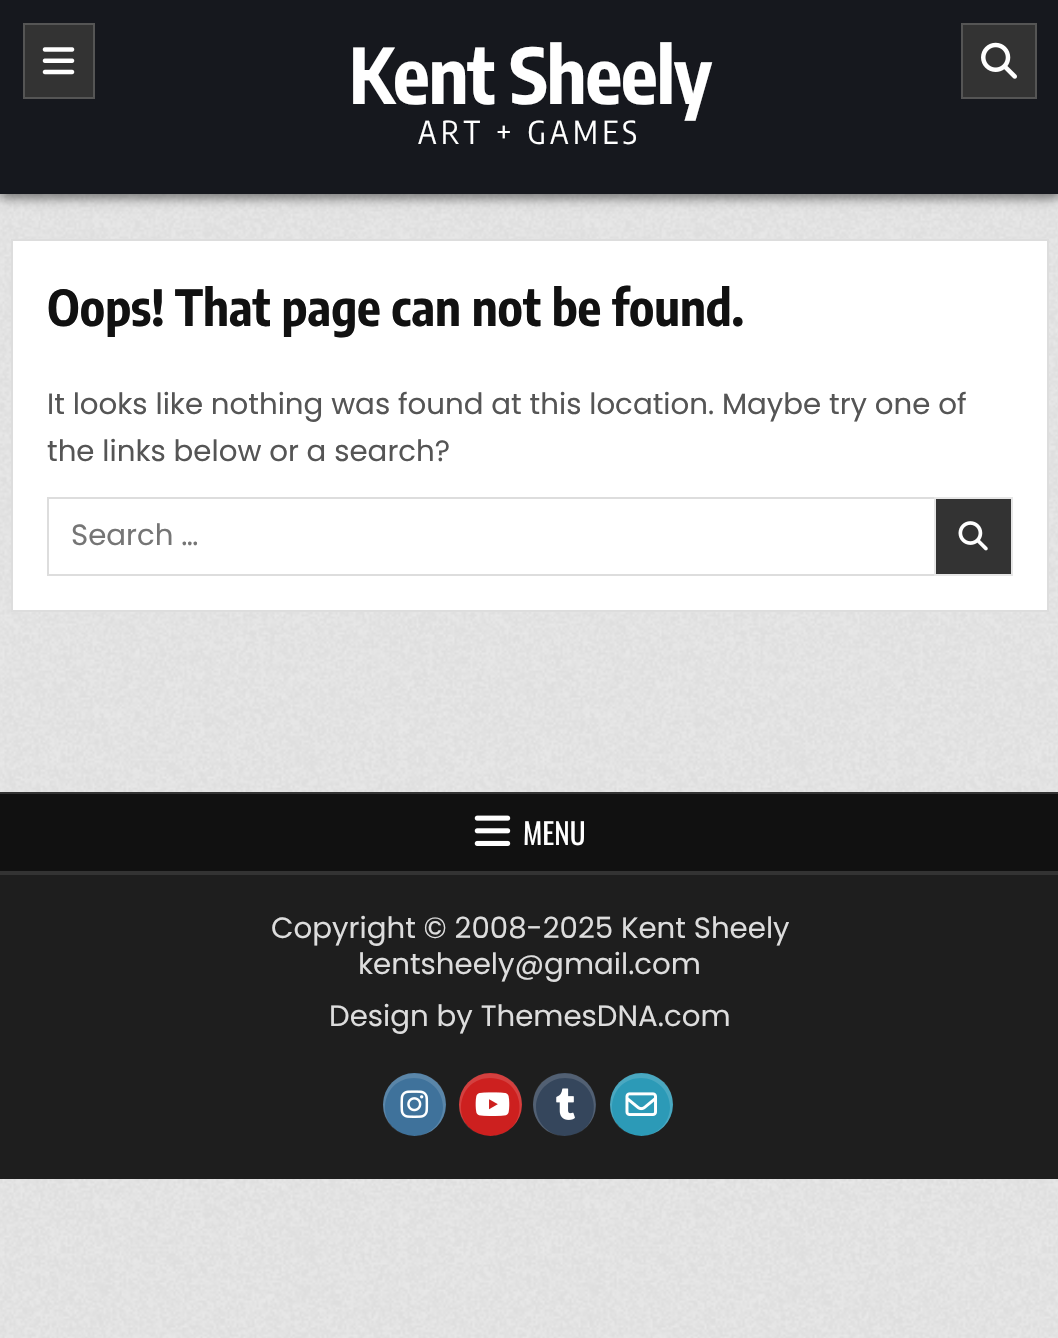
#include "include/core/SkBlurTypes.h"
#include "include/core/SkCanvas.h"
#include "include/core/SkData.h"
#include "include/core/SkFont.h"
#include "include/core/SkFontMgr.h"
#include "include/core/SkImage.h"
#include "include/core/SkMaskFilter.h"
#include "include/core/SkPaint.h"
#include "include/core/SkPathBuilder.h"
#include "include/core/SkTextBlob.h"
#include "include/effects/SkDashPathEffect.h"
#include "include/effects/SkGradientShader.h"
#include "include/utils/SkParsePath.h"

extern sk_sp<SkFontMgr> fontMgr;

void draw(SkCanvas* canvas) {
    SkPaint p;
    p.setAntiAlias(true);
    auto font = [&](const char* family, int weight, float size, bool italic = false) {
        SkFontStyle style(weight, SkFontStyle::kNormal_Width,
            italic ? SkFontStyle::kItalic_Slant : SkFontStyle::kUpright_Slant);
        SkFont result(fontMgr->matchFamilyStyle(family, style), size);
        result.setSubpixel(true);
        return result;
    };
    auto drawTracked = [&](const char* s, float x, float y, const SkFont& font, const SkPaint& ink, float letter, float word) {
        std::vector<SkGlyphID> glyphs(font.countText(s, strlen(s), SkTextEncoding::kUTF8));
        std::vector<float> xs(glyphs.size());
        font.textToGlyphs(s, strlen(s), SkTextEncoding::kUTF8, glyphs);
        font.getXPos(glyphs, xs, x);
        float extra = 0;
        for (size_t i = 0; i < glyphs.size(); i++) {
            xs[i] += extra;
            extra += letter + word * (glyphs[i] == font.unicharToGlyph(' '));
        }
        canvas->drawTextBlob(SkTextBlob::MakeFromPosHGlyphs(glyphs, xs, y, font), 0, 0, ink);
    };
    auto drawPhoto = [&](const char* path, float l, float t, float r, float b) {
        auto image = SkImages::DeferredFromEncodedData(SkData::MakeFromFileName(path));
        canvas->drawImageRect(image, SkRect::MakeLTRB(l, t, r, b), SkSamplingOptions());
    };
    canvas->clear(0xFFFFFFFF);
    drawPhoto("media/1.png", 0, 194, 1058, 1338);
    p.setColor(0x80000000);
    p.setMaskFilter(SkMaskFilter::MakeBlur(kNormal_SkBlurStyle, 5.5f));
    canvas->drawRect(SkRect::MakeLTRB(0, 5, 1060, 198), p);
    p.setMaskFilter(nullptr);
    p.setColor(0xFF16181E);
    canvas->drawRect(SkRect::MakeLTRB(0, 0, 1058, 194), p);
    p.setColor(0xFF333333);
    canvas->drawRect(SkRect::MakeLTRB(24, 24, 94, 98), p);
    p.setStyle(SkPaint::kStroke_Style);
    p.setStrokeWidth(2);
    p.setColor(0xFF555555);
    canvas->drawRect(SkRect::MakeLTRB(24, 24, 94, 98), p);
    drawPhoto("media/2.png", 42, 47, 75, 75);
    auto font1 = font("Encode Sans Condensed", 700, 76.5f);
    p.setStyle(SkPaint::kFill_Style);
    p.setColor(0xFFFFFFFF);
    drawTracked("Kent Sheely", 349, 104, font1, p, -1.1f, 0);
    auto font2 = font("Encode Sans Condensed", 400, 31.5f);
    drawTracked("ART + GAMES", 418, 144, font2, p, 4.5f, 0);
    p.setColor(0xFF333333);
    canvas->drawRect(SkRect::MakeLTRB(962, 24, 1036, 98), p);
    p.setStyle(SkPaint::kStroke_Style);
    p.setColor(0xFF555555);
    canvas->drawRect(SkRect::MakeLTRB(962, 24, 1036, 98), p);
    drawPhoto("media/3.png", 981, 42, 1017, 79);
    p.setStyle(SkPaint::kFill_Style);
    p.setColor(0xFFFFFFFF);
    canvas->drawRect(SkRect::MakeLTRB(12, 240, 1048, 611), p);
    p.setStyle(SkPaint::kStroke_Style);
    p.setColor(0xFFDDDDDD);
    canvas->drawRect(SkRect::MakeLTRB(12, 240, 1048, 611), p);
    auto font3 = font("Encode Sans Condensed", 700, 49.5f);
    p.setStyle(SkPaint::kFill_Style);
    p.setColor(0xFF111111);
    canvas->drawString("Oops! That page can not be found.", 47, 326, font3, p);
    auto font4 = font("Poppins", 400, 29.25f);
    p.setColor(0xFF555555);
    canvas->drawString("It looks like nothing was found at this location. Maybe try one of", 47, 414, font4, p);
    canvas->drawString("the links below or a search?", 47, 461, font4, p);
    p.setStyle(SkPaint::kStroke_Style);
    p.setColor(0xFFDDDDDD);
    canvas->drawRect(SkRect::MakeLTRB(48, 498, 1012, 575), p);
    p.setStyle(SkPaint::kFill_Style);
    p.setColor(0xFF757575);
    canvas->drawString("Search …", 71, 545, font4, p);
    p.setColor(0xFF333333);
    canvas->drawRect(SkRect::MakeLTRB(935, 498, 1012, 575), p);
    p.setStyle(SkPaint::kStroke_Style);
    p.setColor(0xFFE6E6E6);
    canvas->drawRect(SkRect::MakeLTRB(935, 498, 1012, 575), p);
    drawPhoto("media/4.png", 958, 521, 988, 551);
    p.setStyle(SkPaint::kFill_Style);
    {
        const struct { float l, t, r, b; SkColor color; } items[] = {
            {0, 794, 1058, 871, 0xFF111111},
            {0, 792, 1058, 794, 0xFF333333},
            {0, 871, 1058, 875, 0xFF333333},
        };
        for (auto [l, t, r, b, color] : items) {
            p.setColor(color);
            canvas->drawRect(SkRect::MakeLTRB(l, t, r, b), p);
        }
    }
    drawPhoto("media/5.png", 474, 815, 511, 846);
    auto font5 = font("Oswald", 400, 29.25f);
    p.setColor(0xFFFFFFFF);
    canvas->drawString("MENU", 523, 845, font5, p);
    p.setColor(0xFF1E1E1E);
    canvas->drawRect(SkRect::MakeLTRB(0, 875, 1058, 1179), p);
    p.setColor(0xFFDDDDDD);
    {
        const struct { const char* s; float x, y; } items[] = {
            {"Copyright © 2008-2025 Kent Sheely", 271, 938},
            {"kentsheely@gmail.com", 358, 974},
            {"Design by ThemesDNA.com", 329, 1026},
        };
        for (auto [s, x, y] : items) {
            canvas->drawString(s, x, y, font4, p);
        }
    }
    p.setColor(0xFF3F729B);
    canvas->drawCircle(414.5f, 1104.5f, 31.5f, p);
    p.setColor(0x24FFFFFF);
    canvas->drawPath(SkPathBuilder().moveTo(414, 1078).cubicTo(430, 1078, 443, 1091, 443, 1107).cubicTo(443, 1123, 430, 1136, 414, 1136).cubicTo(452, 1136, 458, 1081, 421, 1074).cubicTo(383, 1066, 368, 1120, 403, 1134).cubicTo(374, 1122, 382, 1078, 414, 1078).close().detach(), p);
    drawPhoto("media/6.png", 400, 1090, 429, 1118);
    p.setColor(0xFFCD201F);
    canvas->drawCircle(490.5f, 1104.5f, 31.5f, p);
    p.setColor(0x24FFFFFF);
    canvas->drawPath(SkPathBuilder().moveTo(490, 1078).cubicTo(529, 1078, 530, 1136, 490, 1136).cubicTo(528, 1136, 534, 1081, 497, 1074).cubicTo(459, 1066, 444, 1120, 479, 1134).cubicTo(450, 1122, 458, 1078, 490, 1078).close().detach(), p);
    drawPhoto("media/7.png", 475, 1092, 510, 1116);
    p.setColor(0xFF35465C);
    canvas->drawCircle(564.5f, 1104.5f, 31.5f, p);
    p.setColor(0x24FFFFFF);
    canvas->drawPath(SkPathBuilder().moveTo(565, 1078).cubicTo(597, 1078, 605, 1122, 576, 1134).cubicTo(611, 1120, 596, 1066, 558, 1074).cubicTo(521, 1081, 527, 1136, 565, 1136).cubicTo(549, 1136, 536, 1123, 536, 1107).cubicTo(536, 1091, 549, 1078, 565, 1078).close().detach(), p);
    drawPhoto("media/8.png", 556, 1088, 575, 1120);
    p.setColor(0xFF2C9AB7);
    canvas->drawCircle(641.5f, 1104.5f, 31.5f, p);
    p.setColor(0x24FFFFFF);
    canvas->drawPath(SkPathBuilder().moveTo(641, 1078).cubicTo(657, 1078, 670, 1091, 670, 1107).cubicTo(670, 1123, 657, 1136, 641, 1136).cubicTo(679, 1136, 685, 1081, 648, 1074).cubicTo(610, 1066, 595, 1120, 630, 1134).cubicTo(601, 1122, 609, 1078, 641, 1078).close().detach(), p);
    drawPhoto("media/9.png", 625, 1092, 657, 1116);
}
